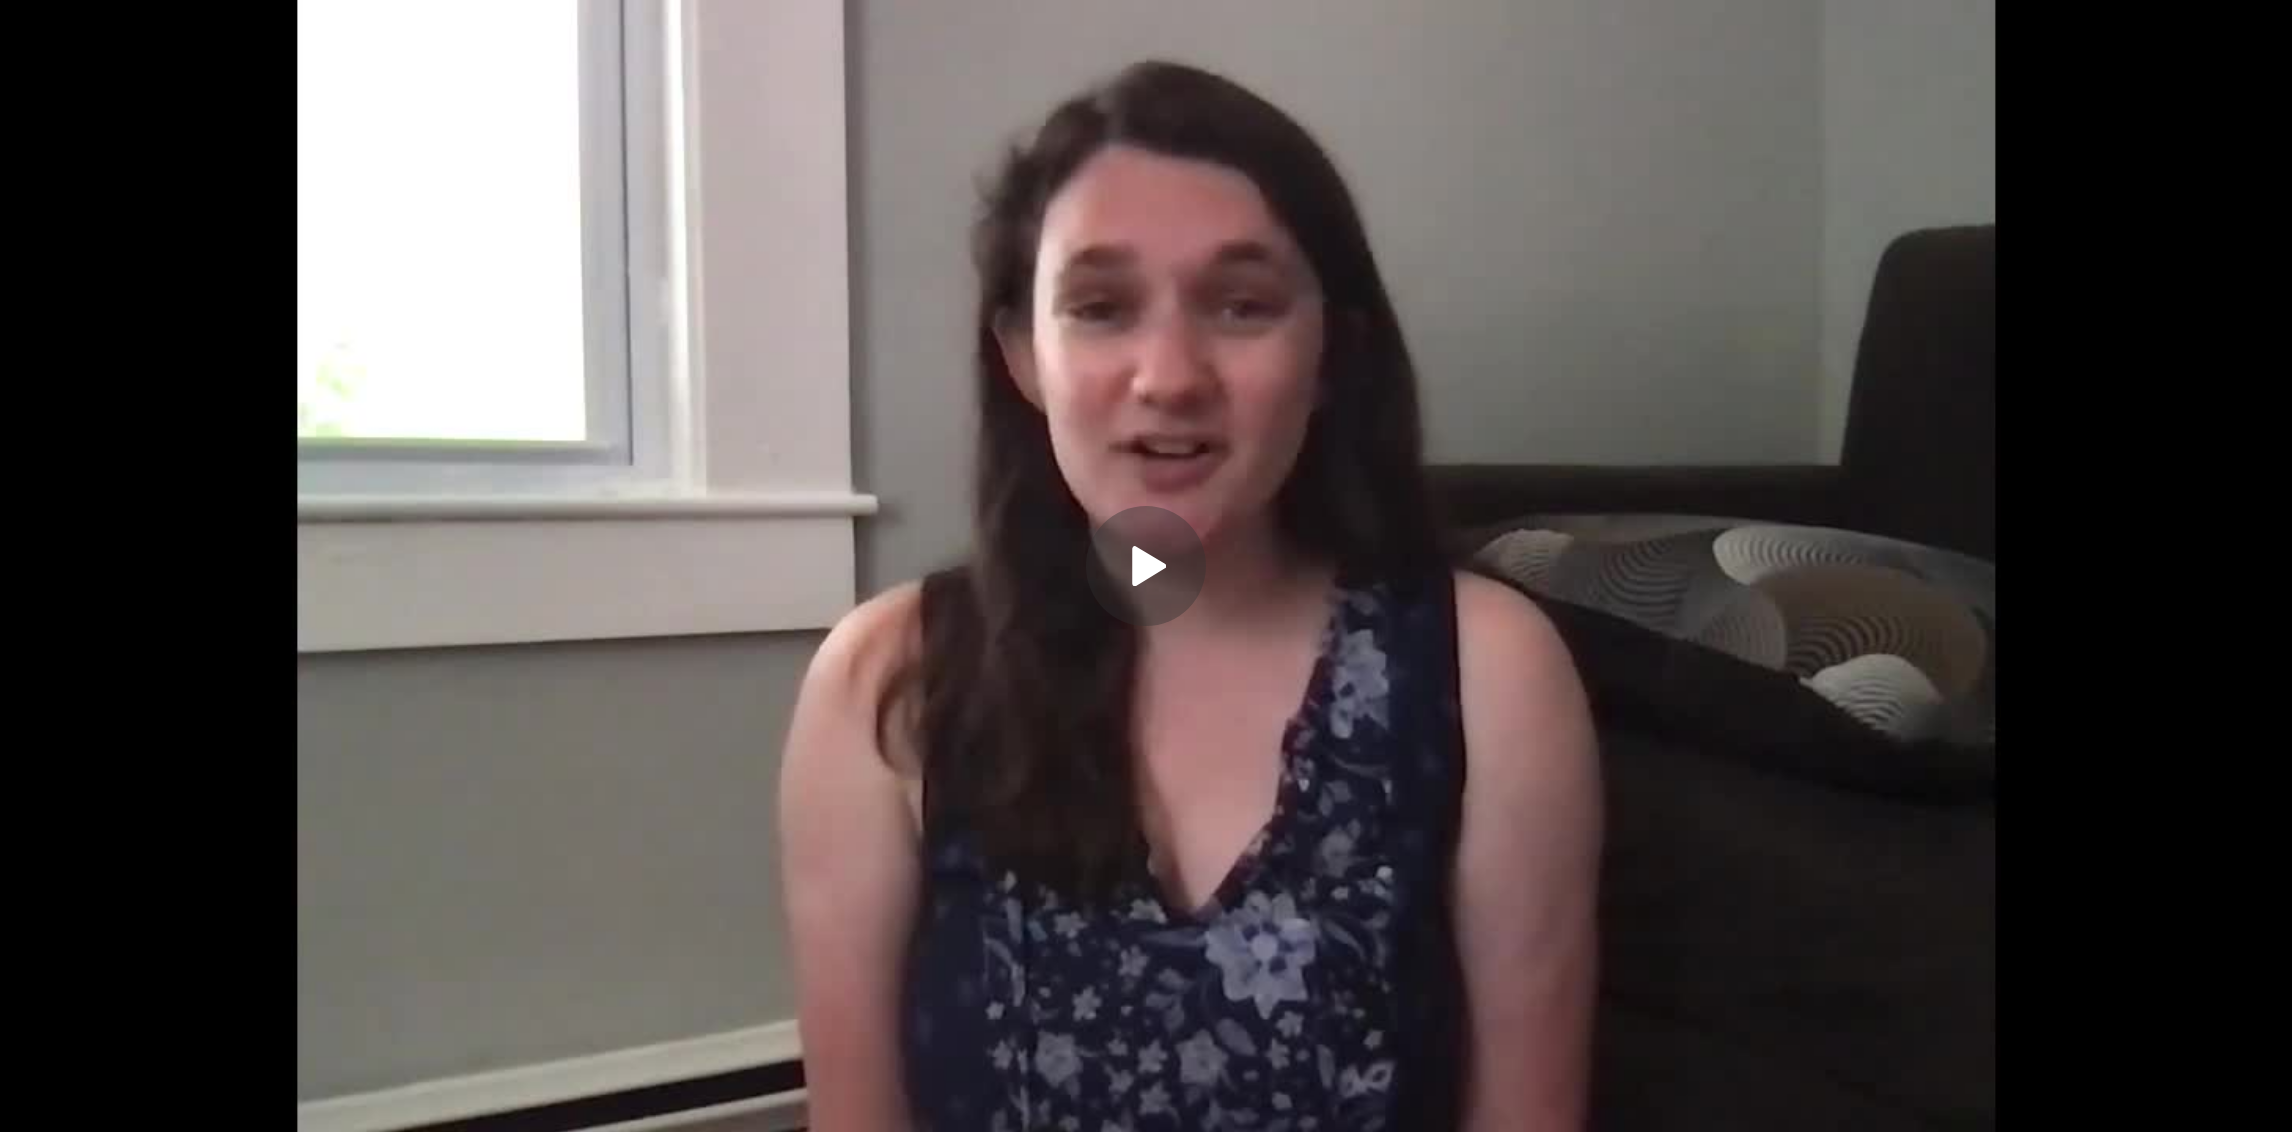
#include "include/core/SkBlurTypes.h"
#include "include/core/SkCanvas.h"
#include "include/core/SkData.h"
#include "include/core/SkFont.h"
#include "include/core/SkFontMgr.h"
#include "include/core/SkImage.h"
#include "include/core/SkMaskFilter.h"
#include "include/core/SkPaint.h"
#include "include/core/SkPathBuilder.h"
#include "include/core/SkTextBlob.h"
#include "include/effects/SkDashPathEffect.h"
#include "include/effects/SkGradientShader.h"
#include "include/utils/SkParsePath.h"

extern sk_sp<SkFontMgr> fontMgr;

void draw(SkCanvas* canvas) {
    SkPaint p;
    p.setAntiAlias(true);
    auto drawPhoto = [&](const char* path, float l, float t, float r, float b) {
        auto image = SkImages::DeferredFromEncodedData(SkData::MakeFromFileName(path));
        canvas->drawImageRect(image, SkRect::MakeLTRB(l, t, r, b), SkSamplingOptions());
    };
    canvas->clear(0xFF000000);
    drawPhoto("media/1.png", 291, 0, 2001, 1132);
    p.setColor(0x66303030);
    canvas->drawCircle(1146, 566, 60, p);
    p.setColor(0xFFFFFFFF);
    canvas->drawPath(SkPathBuilder().moveTo(1163.5f, 566).lineTo(1135, 549).lineTo(1135, 583.5f).close().detach(), p);
    canvas->save();
    canvas->clipRect(SkRect::MakeLTRB(1126, 546, 1166, 586));
    p.setStyle(SkPaint::kStroke_Style);
    p.setStrokeWidth(5.5f);
    p.setStrokeJoin(SkPaint::kRound_Join);
    canvas->drawPath(SkPathBuilder().moveTo(1163.5f, 566).lineTo(1135, 549).lineTo(1135, 583.5f).close().detach(), p);
    canvas->restore();
}
